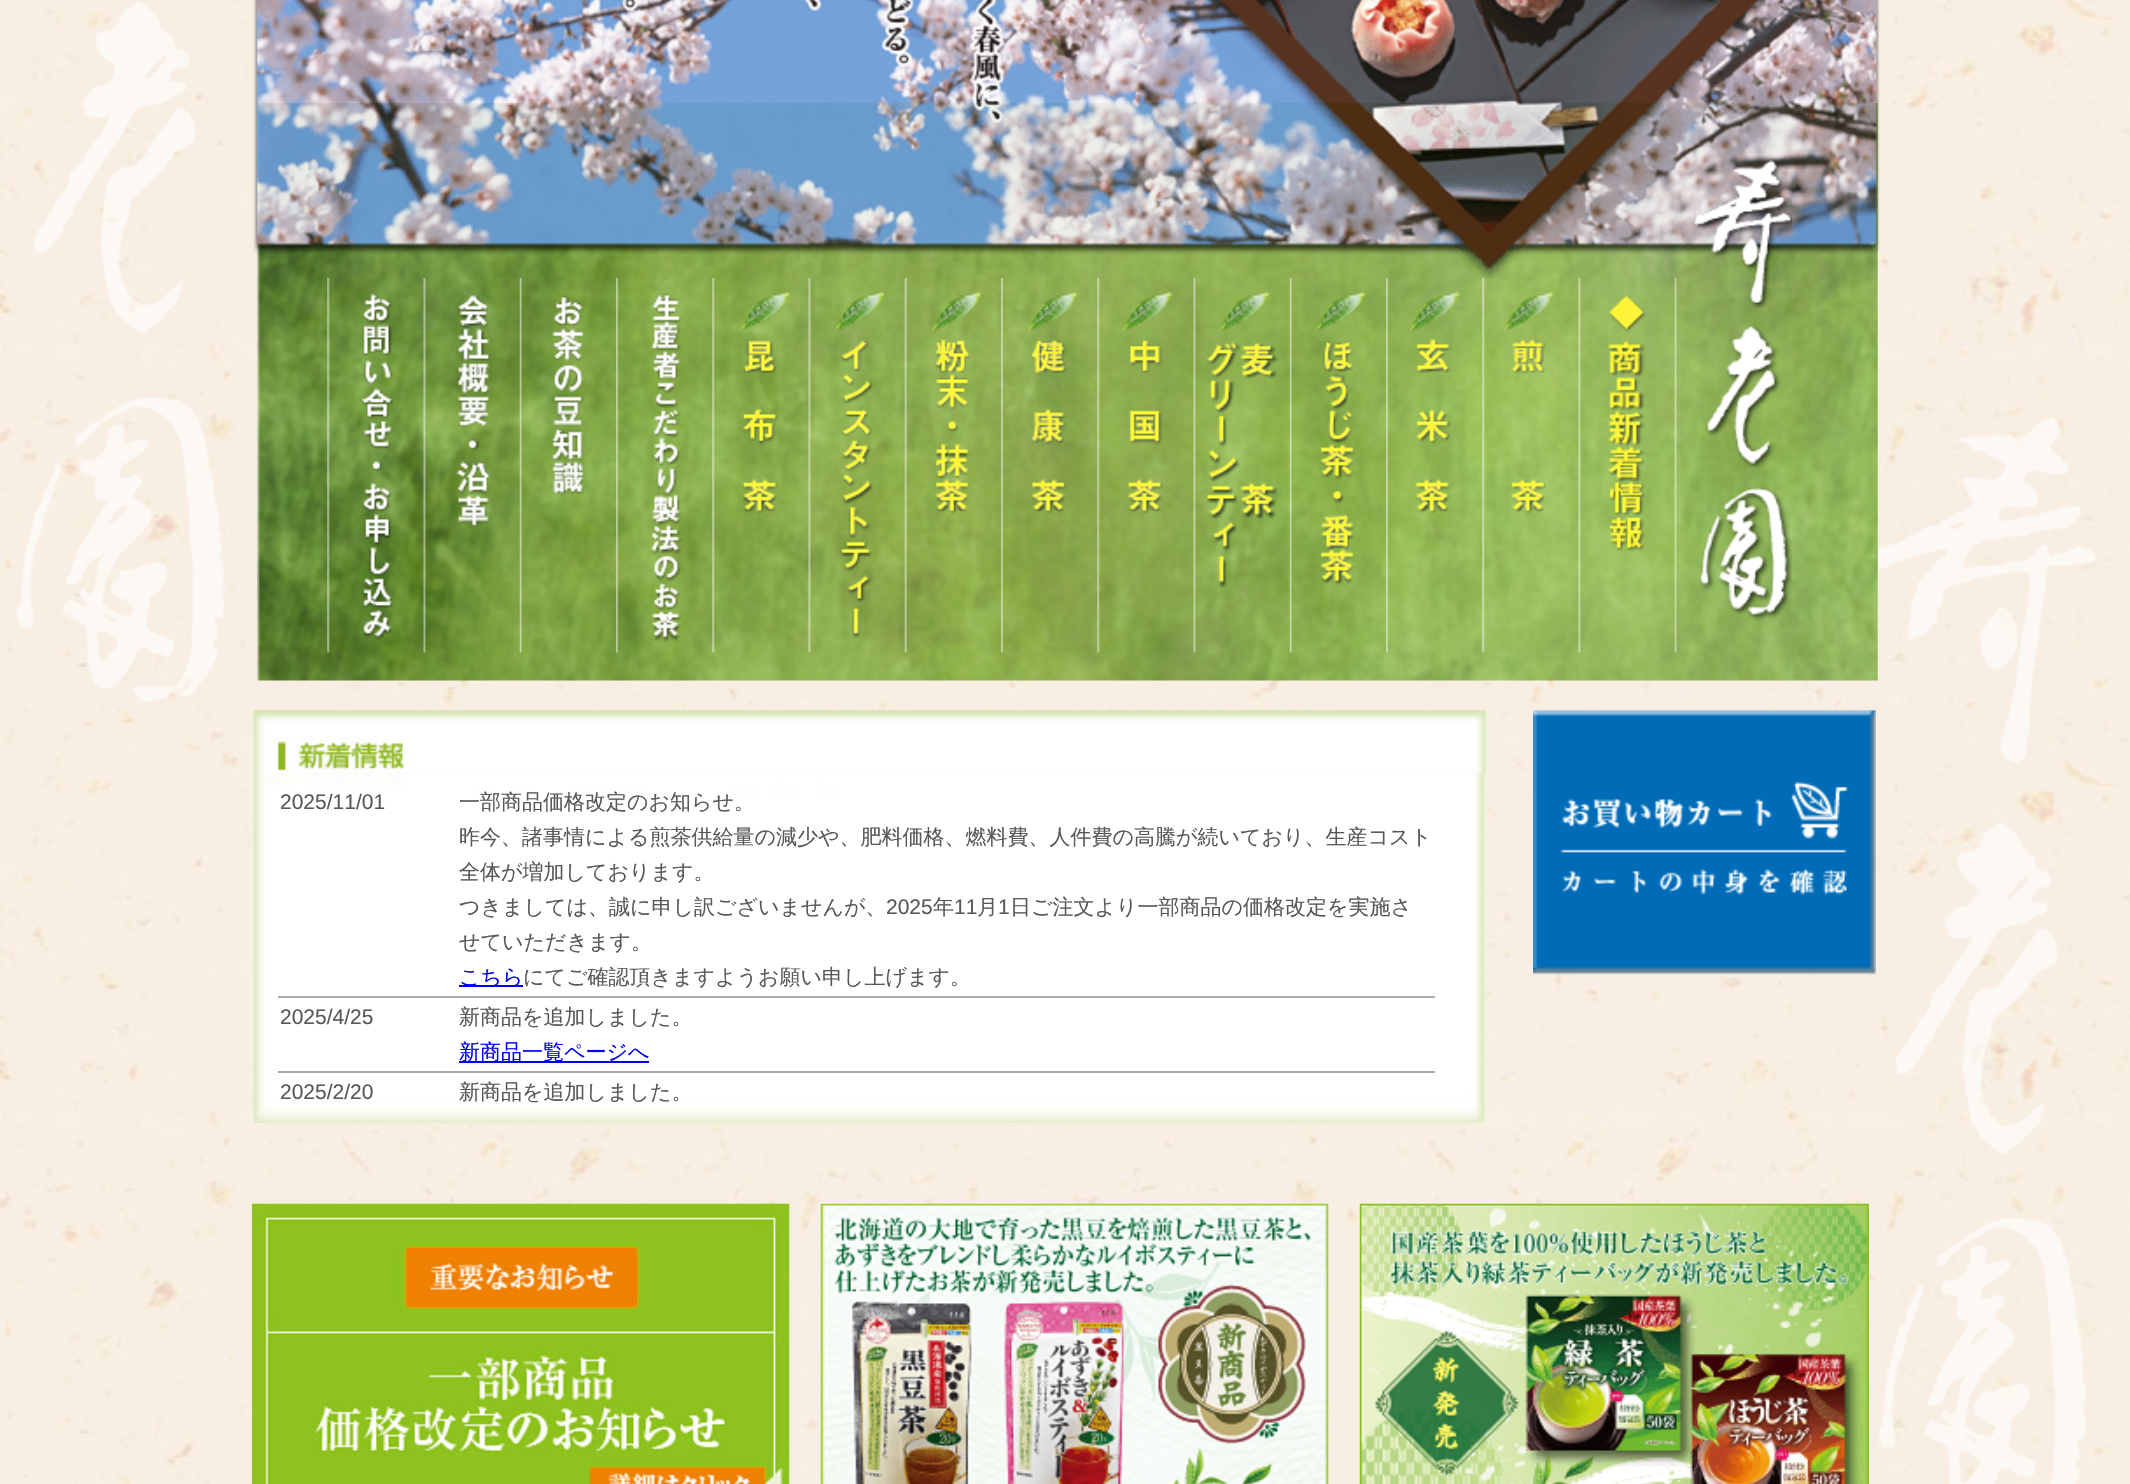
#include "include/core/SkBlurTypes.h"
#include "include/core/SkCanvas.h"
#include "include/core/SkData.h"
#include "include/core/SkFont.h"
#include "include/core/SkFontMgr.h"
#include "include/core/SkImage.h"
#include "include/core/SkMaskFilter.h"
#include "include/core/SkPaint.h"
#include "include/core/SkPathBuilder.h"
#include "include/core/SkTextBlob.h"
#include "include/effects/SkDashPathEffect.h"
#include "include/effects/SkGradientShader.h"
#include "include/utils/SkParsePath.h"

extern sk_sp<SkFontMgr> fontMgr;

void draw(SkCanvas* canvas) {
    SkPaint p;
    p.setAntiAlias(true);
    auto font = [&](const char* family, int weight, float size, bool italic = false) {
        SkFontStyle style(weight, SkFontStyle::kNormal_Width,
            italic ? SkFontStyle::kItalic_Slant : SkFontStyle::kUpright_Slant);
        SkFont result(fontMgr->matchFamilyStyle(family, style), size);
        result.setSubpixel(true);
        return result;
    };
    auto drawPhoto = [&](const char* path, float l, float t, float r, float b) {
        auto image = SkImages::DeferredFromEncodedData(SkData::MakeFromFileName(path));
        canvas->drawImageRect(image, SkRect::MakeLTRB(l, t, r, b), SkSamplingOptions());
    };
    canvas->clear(0xFFFFFFFF);
    drawPhoto("media/1.png", 0, 0, 2130, 1484);
    drawPhoto("media/2.png", 16, 1, 225, 703);
    drawPhoto("media/26.png", 1877, 417, 2097, 1484);
    drawPhoto("media/4.png", 257, 103, 1878, 681);
    drawPhoto("media/5.png", 327, 278, 394, 653);
    drawPhoto("media/6.png", 423, 278, 491, 653);
    drawPhoto("media/7.png", 519, 278, 585, 653);
    drawPhoto("media/8.png", 616, 278, 682, 653);
    drawPhoto("media/9.png", 712, 278, 790, 653);
    drawPhoto("media/10.png", 808, 278, 885, 653);
    drawPhoto("media/11.png", 904, 278, 982, 653);
    drawPhoto("media/12.png", 1001, 278, 1079, 653);
    drawPhoto("media/13.png", 1097, 278, 1173, 653);
    drawPhoto("media/14.png", 1193, 278, 1278, 653);
    drawPhoto("media/15.png", 1289, 278, 1366, 653);
    drawPhoto("media/16.png", 1386, 278, 1460, 653);
    drawPhoto("media/17.png", 1482, 278, 1554, 653);
    drawPhoto("media/18.png", 1578, 278, 1677, 653);
    drawPhoto("media/3.png", 253, 0, 1880, 279);
    drawPhoto("media/19.png", 1693, 160, 1792, 621);
    drawPhoto("media/21.png", 252, 773, 1486, 1124);
    drawPhoto("media/20.png", 252, 710, 1488, 774);
    p.setColor(0xFFAAAAAA);
    canvas->drawRect(SkRect::MakeLTRB(278, 996, 1435, 998), p);
    auto font1 = font("Liberation Sans", 400, 21);
    p.setColor(0xFF595757);
    canvas->drawString("2025/11/01", 280, 809, font1, p);
    auto font2 = font("WenQuanYi Zen Hei", 500, 21);
    {
        const struct { const char* s; float x, y; } items[] = {
            {"一部商品価格改定のお知らせ。", 459, 809},
            {"昨今、諸事情による煎茶供給量の減少や、肥料価格、燃料費、人件費の高騰が続いており、生産コスト", 459, 844},
            {"全体が増加しております。", 459, 879},
            {"つきましては、誠に申し訳ございませんが、", 459, 914},
        };
        for (auto [s, x, y] : items) {
            canvas->drawString(s, x, y, font2, p);
        }
    }
    canvas->drawString("2025", 886, 914, font1, p);
    canvas->drawString("年", 933, 914, font2, p);
    canvas->drawString("11", 954, 914, font1, p);
    canvas->drawString("月", 977, 914, font2, p);
    canvas->drawString("1", 998, 914, font1, p);
    canvas->drawString("日ご注文より一部商品の価格改定を実施さ", 1010, 914, font2, p);
    canvas->drawString("せていただきます。", 459, 949, font2, p);
    p.setColor(0xFF0000EE);
    canvas->drawRect(SkRect::MakeLTRB(459, 985, 523, 987), p);
    canvas->drawString("こちら", 459, 984, font2, p);
    p.setColor(0xFF595757);
    canvas->drawString("にてご確認頂きますようお願い申し上げます。", 523, 984, font2, p);
    p.setColor(0xFFAAAAAA);
    canvas->drawRect(SkRect::MakeLTRB(278, 1071, 1435, 1073), p);
    p.setColor(0xFF595757);
    canvas->drawString("2025/4/25", 280, 1024, font1, p);
    canvas->drawString("新商品を追加しました。", 459, 1024, font2, p);
    p.setColor(0xFF0000EE);
    canvas->drawRect(SkRect::MakeLTRB(459, 1061, 649, 1063), p);
    canvas->drawString("新商品一覧ページへ", 459, 1059, font2, p);
    p.setColor(0xFF595757);
    canvas->drawString("2025/2/20", 280, 1099, font1, p);
    canvas->drawString("新商品を追加しました。", 459, 1099, font2, p);
    drawPhoto("media/22.png", 1533, 710, 1876, 975);
    drawPhoto("media/23.png", 252, 1203, 790, 1484);
    drawPhoto("media/24.png", 820, 1203, 1329, 1484);
    drawPhoto("media/25.png", 1359, 1203, 1869, 1484);
}
